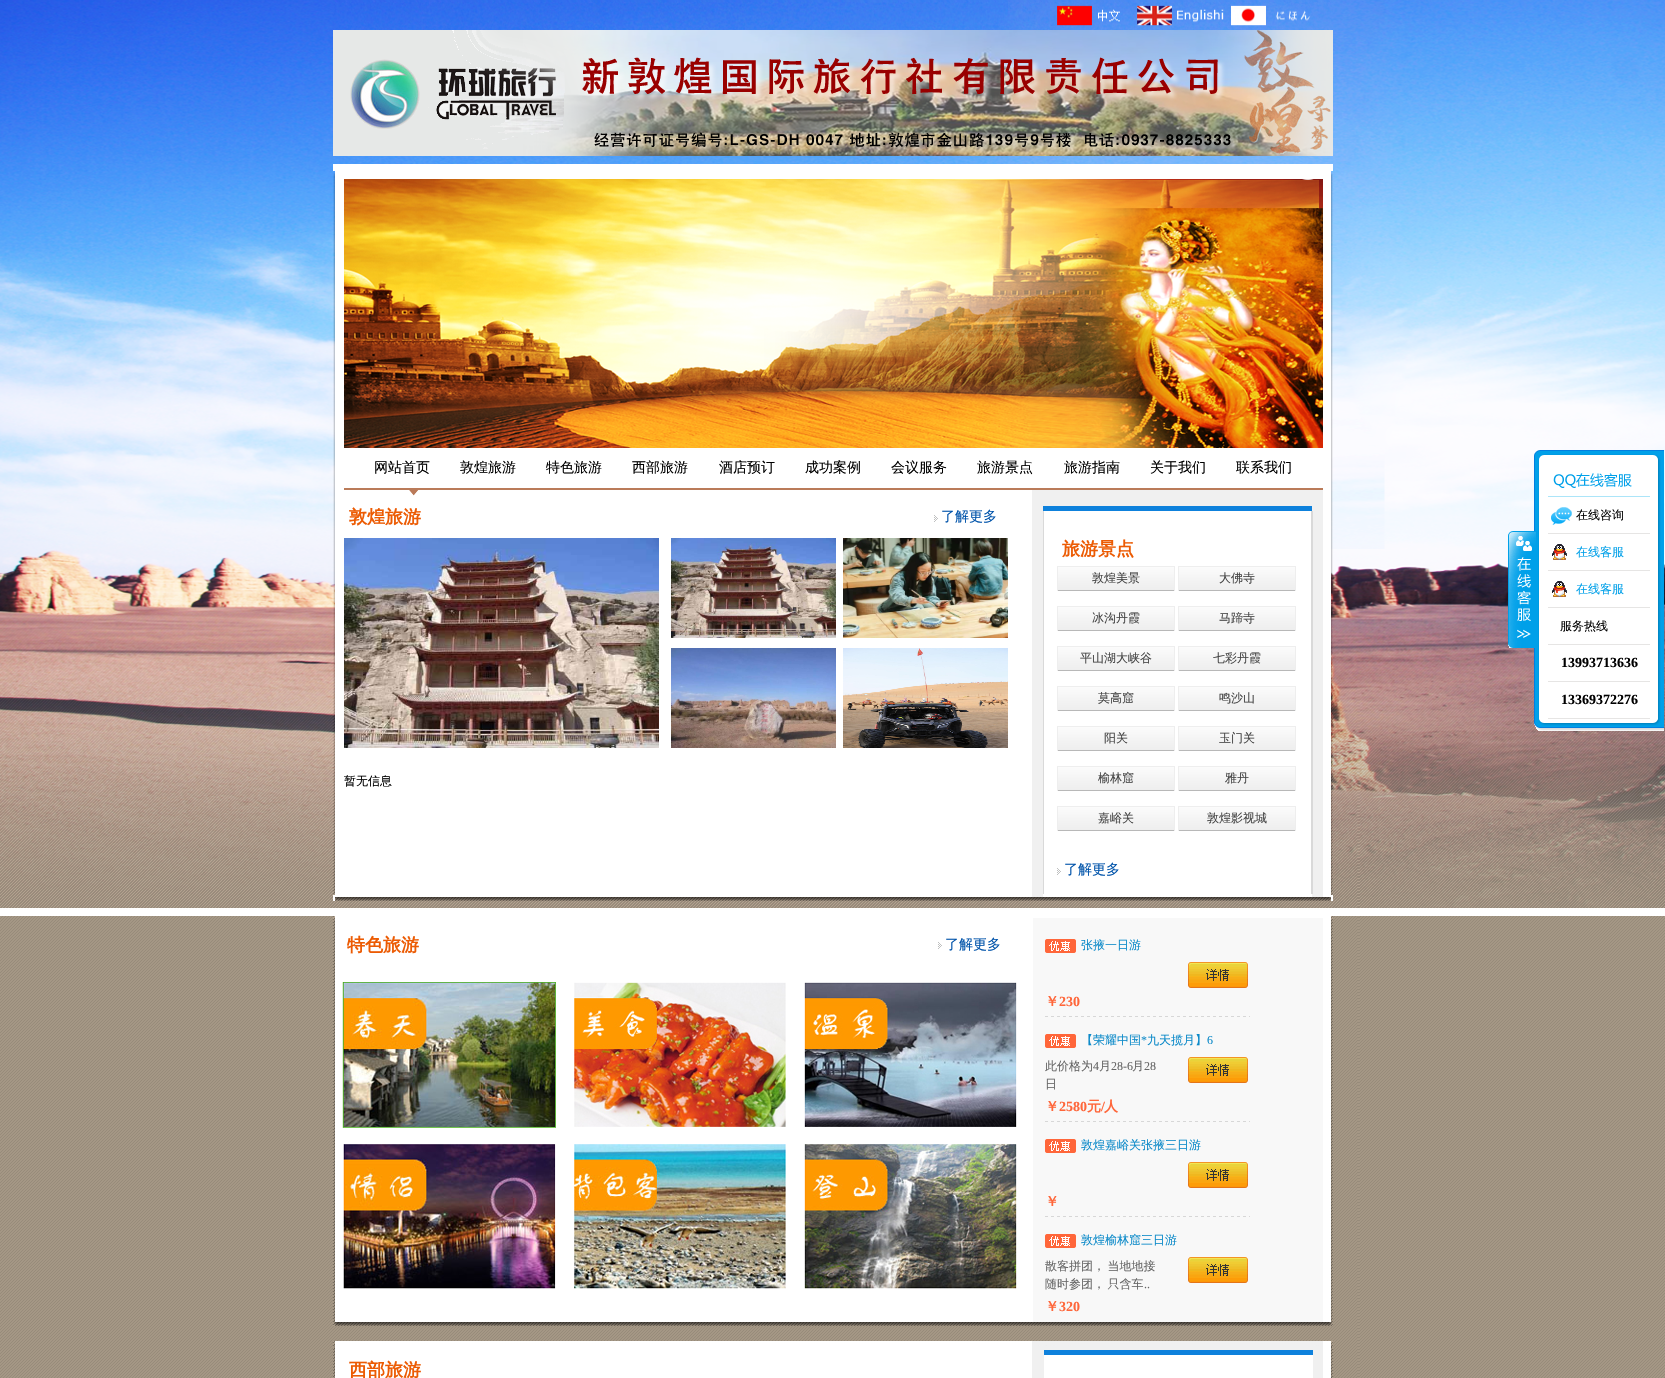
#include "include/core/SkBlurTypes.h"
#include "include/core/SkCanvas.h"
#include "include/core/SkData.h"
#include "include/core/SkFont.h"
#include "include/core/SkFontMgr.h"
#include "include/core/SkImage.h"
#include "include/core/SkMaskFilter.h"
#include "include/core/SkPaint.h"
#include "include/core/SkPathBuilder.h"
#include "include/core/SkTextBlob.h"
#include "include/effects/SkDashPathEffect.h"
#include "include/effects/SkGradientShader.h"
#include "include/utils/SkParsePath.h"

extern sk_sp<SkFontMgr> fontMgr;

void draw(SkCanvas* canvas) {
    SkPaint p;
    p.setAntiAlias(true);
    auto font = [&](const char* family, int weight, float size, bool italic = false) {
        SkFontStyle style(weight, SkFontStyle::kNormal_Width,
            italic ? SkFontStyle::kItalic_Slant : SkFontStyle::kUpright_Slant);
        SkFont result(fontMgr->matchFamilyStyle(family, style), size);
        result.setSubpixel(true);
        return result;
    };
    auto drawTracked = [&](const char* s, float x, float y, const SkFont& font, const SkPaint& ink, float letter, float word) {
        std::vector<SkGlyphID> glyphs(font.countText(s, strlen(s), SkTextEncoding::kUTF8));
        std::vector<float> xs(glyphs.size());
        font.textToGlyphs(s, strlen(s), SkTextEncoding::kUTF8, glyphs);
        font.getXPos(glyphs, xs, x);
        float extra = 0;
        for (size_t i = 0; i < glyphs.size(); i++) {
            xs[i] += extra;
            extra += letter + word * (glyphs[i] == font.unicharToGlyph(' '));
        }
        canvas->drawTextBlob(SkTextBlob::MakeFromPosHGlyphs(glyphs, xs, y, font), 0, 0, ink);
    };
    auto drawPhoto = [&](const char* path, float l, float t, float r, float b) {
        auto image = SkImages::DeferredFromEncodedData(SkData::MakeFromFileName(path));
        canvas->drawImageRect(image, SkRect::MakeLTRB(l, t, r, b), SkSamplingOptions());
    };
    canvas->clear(0xFFFFFFFF);
    drawPhoto("media/1.png", 0, 0, 1665, 908);
    drawPhoto("media/2.png", 333, 1, 1333, 30);
    drawPhoto("media/3.png", 333, 30, 1333, 156);
    p.setColor(0xFFFFFFFF);
    canvas->drawRect(SkRect::MakeLTRB(333, 164, 1333, 901), p);
    drawPhoto("media/4.png", 333, 171, 335, 895);
    drawPhoto("media/5.png", 344, 179, 1323, 448);
    auto font1 = font("WenQuanYi Zen Hei", 500, 14);
    p.setColor(0xFF000000);
    {
        const struct { const char* s; float x, y; } items[] = {
            {"网站首页", 374, 472},
            {"敦煌旅游", 460, 472},
            {"特色旅游", 546, 472},
            {"西部旅游", 632, 472},
            {"酒店预订", 719, 472},
            {"成功案例", 805, 472},
            {"会议服务", 891, 472},
            {"旅游景点", 977, 472},
            {"旅游指南", 1064, 472},
            {"关于我们", 1150, 472},
            {"联系我们", 1236, 472},
        };
        for (auto [s, x, y] : items) {
            canvas->drawString(s, x, y, font1, p);
        }
    }
    drawPhoto("media/6.png", 344, 488, 1323, 496);
    p.setColor(0xFFF0F0F0);
    canvas->drawRect(SkRect::MakeLTRB(1032, 496, 1323, 897), p);
    auto font2 = font("WenQuanYi Zen Hei", 700, 18);
    p.setColor(0xFFEC5B03);
    canvas->drawString("敦煌旅游", 349, 523, font2, p);
    drawPhoto("media/7.png", 934, 515, 938, 522);
    p.setColor(0xFF0053AA);
    canvas->drawString("了解更多", 941, 521, font1, p);
    drawPhoto("media/8.png", 344, 538, 659, 748);
    drawPhoto("media/9.png", 671, 538, 836, 638);
    drawPhoto("media/10.png", 843, 538, 1008, 638);
    drawPhoto("media/11.png", 671, 648, 836, 748);
    drawPhoto("media/12.png", 843, 648, 1008, 748);
    auto font3 = font("WenQuanYi Zen Hei", 500, 12);
    p.setColor(0xFF000000);
    canvas->drawString("暂无信息", 344, 785, font3, p);
    p.setColor(0xFF0E81DC);
    canvas->drawRect(SkRect::MakeLTRB(1043, 506, 1312, 511), p);
    drawPhoto("media/13.png", 1043, 511, 1313, 894);
    p.setColor(0xFFEC5B03);
    canvas->drawString("旅游景点", 1062, 555, font2, p);
    drawPhoto("media/14.png", 1057, 566, 1175, 591);
    p.setColor(0xFF454545);
    canvas->drawString("敦煌美景", 1092, 582, font3, p);
    drawPhoto("media/14.png", 1178, 566, 1296, 591);
    canvas->drawString("大佛寺", 1219, 582, font3, p);
    drawPhoto("media/14.png", 1057, 606, 1175, 631);
    canvas->drawString("冰沟丹霞", 1092, 622, font3, p);
    drawPhoto("media/14.png", 1178, 606, 1296, 631);
    canvas->drawString("马蹄寺", 1219, 622, font3, p);
    drawPhoto("media/14.png", 1057, 646, 1175, 671);
    canvas->drawString("平山湖大峡谷", 1080, 662, font3, p);
    drawPhoto("media/14.png", 1178, 646, 1296, 671);
    canvas->drawString("七彩丹霞", 1213, 662, font3, p);
    drawPhoto("media/14.png", 1057, 686, 1175, 711);
    canvas->drawString("莫高窟", 1098, 702, font3, p);
    drawPhoto("media/14.png", 1178, 686, 1296, 711);
    canvas->drawString("鸣沙山", 1219, 702, font3, p);
    drawPhoto("media/14.png", 1057, 726, 1175, 751);
    canvas->drawString("阳关", 1104, 742, font3, p);
    drawPhoto("media/14.png", 1178, 726, 1296, 751);
    canvas->drawString("玉门关", 1219, 742, font3, p);
    drawPhoto("media/14.png", 1057, 766, 1175, 791);
    canvas->drawString("榆林窟", 1098, 782, font3, p);
    drawPhoto("media/14.png", 1178, 766, 1296, 791);
    canvas->drawString("雅丹", 1225, 782, font3, p);
    drawPhoto("media/14.png", 1057, 806, 1175, 831);
    canvas->drawString("嘉峪关", 1098, 822, font3, p);
    drawPhoto("media/14.png", 1178, 806, 1296, 831);
    canvas->drawString("敦煌影视城", 1207, 822, font3, p);
    drawPhoto("media/7.png", 1057, 868, 1061, 875);
    p.setColor(0xFF0053AA);
    canvas->drawString("了解更多", 1064, 874, font1, p);
    p.setColor(0xFFFFFFFF);
    canvas->drawRect(SkRect::MakeLTRB(1043, 894, 1312, 897), p);
    drawPhoto("media/15.png", 335, 897, 1331, 901);
    drawPhoto("media/16.png", 1331, 171, 1333, 895);
    drawPhoto("media/17.png", 0, 916, 1665, 1378);
    drawPhoto("media/21.png", 1534, 460, 1664, 719);
    drawPhoto("media/18.png", 1508, 531, 1536, 648);
    drawPhoto("media/19.png", 1534, 719, 1664, 731);
    drawPhoto("media/20.png", 1534, 450, 1664, 460);
    p.setColor(0xFFACE5F9);
    canvas->drawRect(SkRect::MakeLTRB(1548, 496, 1650, 497), p);
    drawPhoto("media/22.png", 1553, 473, 1632, 488);
    p.setColor(0xFFE6E5E4);
    canvas->drawRect(SkRect::MakeLTRB(1548, 533, 1650, 534), p);
    drawPhoto("media/23.png", 1551, 507, 1572, 525);
    p.setColor(0xFF000000);
    canvas->drawString("在线咨询", 1576, 519, font3, p);
    p.setColor(0xFFE6E5E4);
    canvas->drawRect(SkRect::MakeLTRB(1548, 570, 1650, 571), p);
    drawPhoto("media/24.png", 1552, 544, 1567, 560);
    p.setColor(0xFF00A0E9);
    canvas->drawString("在线客服", 1576, 556, font3, p);
    p.setColor(0xFFE6E5E4);
    canvas->drawRect(SkRect::MakeLTRB(1548, 607, 1650, 608), p);
    drawPhoto("media/24.png", 1552, 581, 1567, 597);
    p.setColor(0xFF00A0E9);
    canvas->drawString("在线客服", 1576, 593, font3, p);
    p.setColor(0xFFE6E5E4);
    canvas->drawRect(SkRect::MakeLTRB(1548, 644, 1650, 645), p);
    p.setColor(0xFF000000);
    canvas->drawString("服务热线", 1560, 630, font3, p);
    p.setColor(0xFFE6E5E4);
    canvas->drawRect(SkRect::MakeLTRB(1548, 681, 1650, 682), p);
    auto font4 = font("Liberation Serif", 700, 14);
    p.setColor(0xFF000000);
    canvas->drawString("13993713636", 1561, 667, font4, p);
    p.setColor(0xFFE6E5E4);
    canvas->drawRect(SkRect::MakeLTRB(1548, 718, 1650, 719), p);
    p.setColor(0xFF000000);
    canvas->drawString("13369372276", 1561, 704, font4, p);
    drawPhoto("media/25.png", 333, 916, 1333, 922);
    drawPhoto("media/26.png", 333, 922, 1333, 1321);
    p.setColor(0xFFEC5B03);
    canvas->drawString("特色旅游", 347, 951, font2, p);
    drawPhoto("media/7.png", 938, 942, 942, 949);
    p.setColor(0xFF0053AA);
    canvas->drawString("了解更多", 945, 949, font1, p);
    drawPhoto("media/27.png", 342, 982, 556, 1128);
    drawPhoto("media/28.png", 574, 982, 786, 1127);
    drawPhoto("media/29.png", 804, 982, 1017, 1127);
    drawPhoto("media/30.png", 343, 1144, 556, 1289);
    drawPhoto("media/31.png", 574, 1144, 786, 1289);
    drawPhoto("media/32.png", 804, 1144, 1017, 1289);
    drawPhoto("media/33.png", 1045, 939, 1076, 953);
    p.setColor(0xFF0C8AC9);
    canvas->drawString("张掖一日游", 1081, 949, font3, p);
    drawPhoto("media/34.png", 1188, 962, 1248, 988);
    auto font5 = font("WenQuanYi Zen Hei", 700, 14);
    p.setColor(0xFFFF663A);
    canvas->drawString("￥", 1045, 1006, font5, p);
    canvas->drawString("230", 1059, 1006, font4, p);
    drawPhoto("media/35.png", 1045, 1016, 1250, 1017);
    drawPhoto("media/33.png", 1045, 1034, 1076, 1048);
    p.setColor(0xFF0C8AC9);
    canvas->drawString("【荣耀中国", 1081, 1044, font3, p);
    auto font6 = font("Liberation Serif", 400, 12);
    canvas->drawString("*", 1141, 1044, font6, p);
    canvas->drawString("九天揽月】", 1147, 1044, font3, p);
    canvas->drawString("6", 1207, 1044, font6, p);
    p.setColor(0xFF666666);
    canvas->drawString("此价格为", 1045, 1070, font3, p);
    canvas->drawString("4", 1093, 1070, font6, p);
    canvas->drawString("月", 1099, 1070, font3, p);
    canvas->drawString("28-6", 1111, 1070, font6, p);
    canvas->drawString("月", 1132, 1070, font3, p);
    canvas->drawString("28", 1144, 1070, font6, p);
    canvas->drawString("日", 1045, 1088, font3, p);
    drawPhoto("media/34.png", 1188, 1057, 1248, 1083);
    p.setColor(0xFFFF663A);
    canvas->drawString("￥", 1045, 1111, font5, p);
    canvas->drawString("2580", 1059, 1111, font4, p);
    canvas->drawString("元", 1087, 1111, font5, p);
    canvas->drawString("/", 1101, 1111, font4, p);
    canvas->drawString("人", 1104, 1111, font5, p);
    drawPhoto("media/35.png", 1045, 1121, 1250, 1122);
    drawPhoto("media/33.png", 1045, 1139, 1076, 1153);
    p.setColor(0xFF0C8AC9);
    canvas->drawString("敦煌嘉峪关张掖三日游", 1081, 1149, font3, p);
    drawPhoto("media/34.png", 1188, 1162, 1248, 1188);
    p.setColor(0xFFFF663A);
    canvas->drawString("￥", 1045, 1206, font5, p);
    drawPhoto("media/35.png", 1045, 1216, 1250, 1217);
    drawPhoto("media/33.png", 1045, 1234, 1076, 1248);
    p.setColor(0xFF0C8AC9);
    canvas->drawString("敦煌榆林窟三日游", 1081, 1244, font3, p);
    p.setColor(0xFF666666);
    drawTracked("散客拼团， 当地地接", 1045, 1270, font3, p, 0, -1);
    drawTracked("随时参团， 只含车", 1045, 1288, font3, p, 0, -1);
    canvas->drawString("..", 1144, 1288, font6, p);
    drawPhoto("media/34.png", 1188, 1257, 1248, 1283);
    p.setColor(0xFFFF663A);
    canvas->drawString("￥", 1045, 1311, font5, p);
    canvas->drawString("320", 1059, 1311, font4, p);
    drawPhoto("media/36.png", 333, 1321, 1333, 1326);
    drawPhoto("media/37.png", 333, 1341, 1333, 1347);
    drawPhoto("media/38.png", 333, 1347, 1333, 1378);
    p.setColor(0xFFEC5B03);
    canvas->drawString("西部旅游", 349, 1376, font2, p);
    p.setColor(0xFF0E81DC);
    canvas->drawRect(SkRect::MakeLTRB(1044, 1350, 1313, 1355), p);
    p.setColor(0xFFFFFFFF);
    canvas->drawRect(SkRect::MakeLTRB(1044, 1355, 1313, 1378), p);
}
